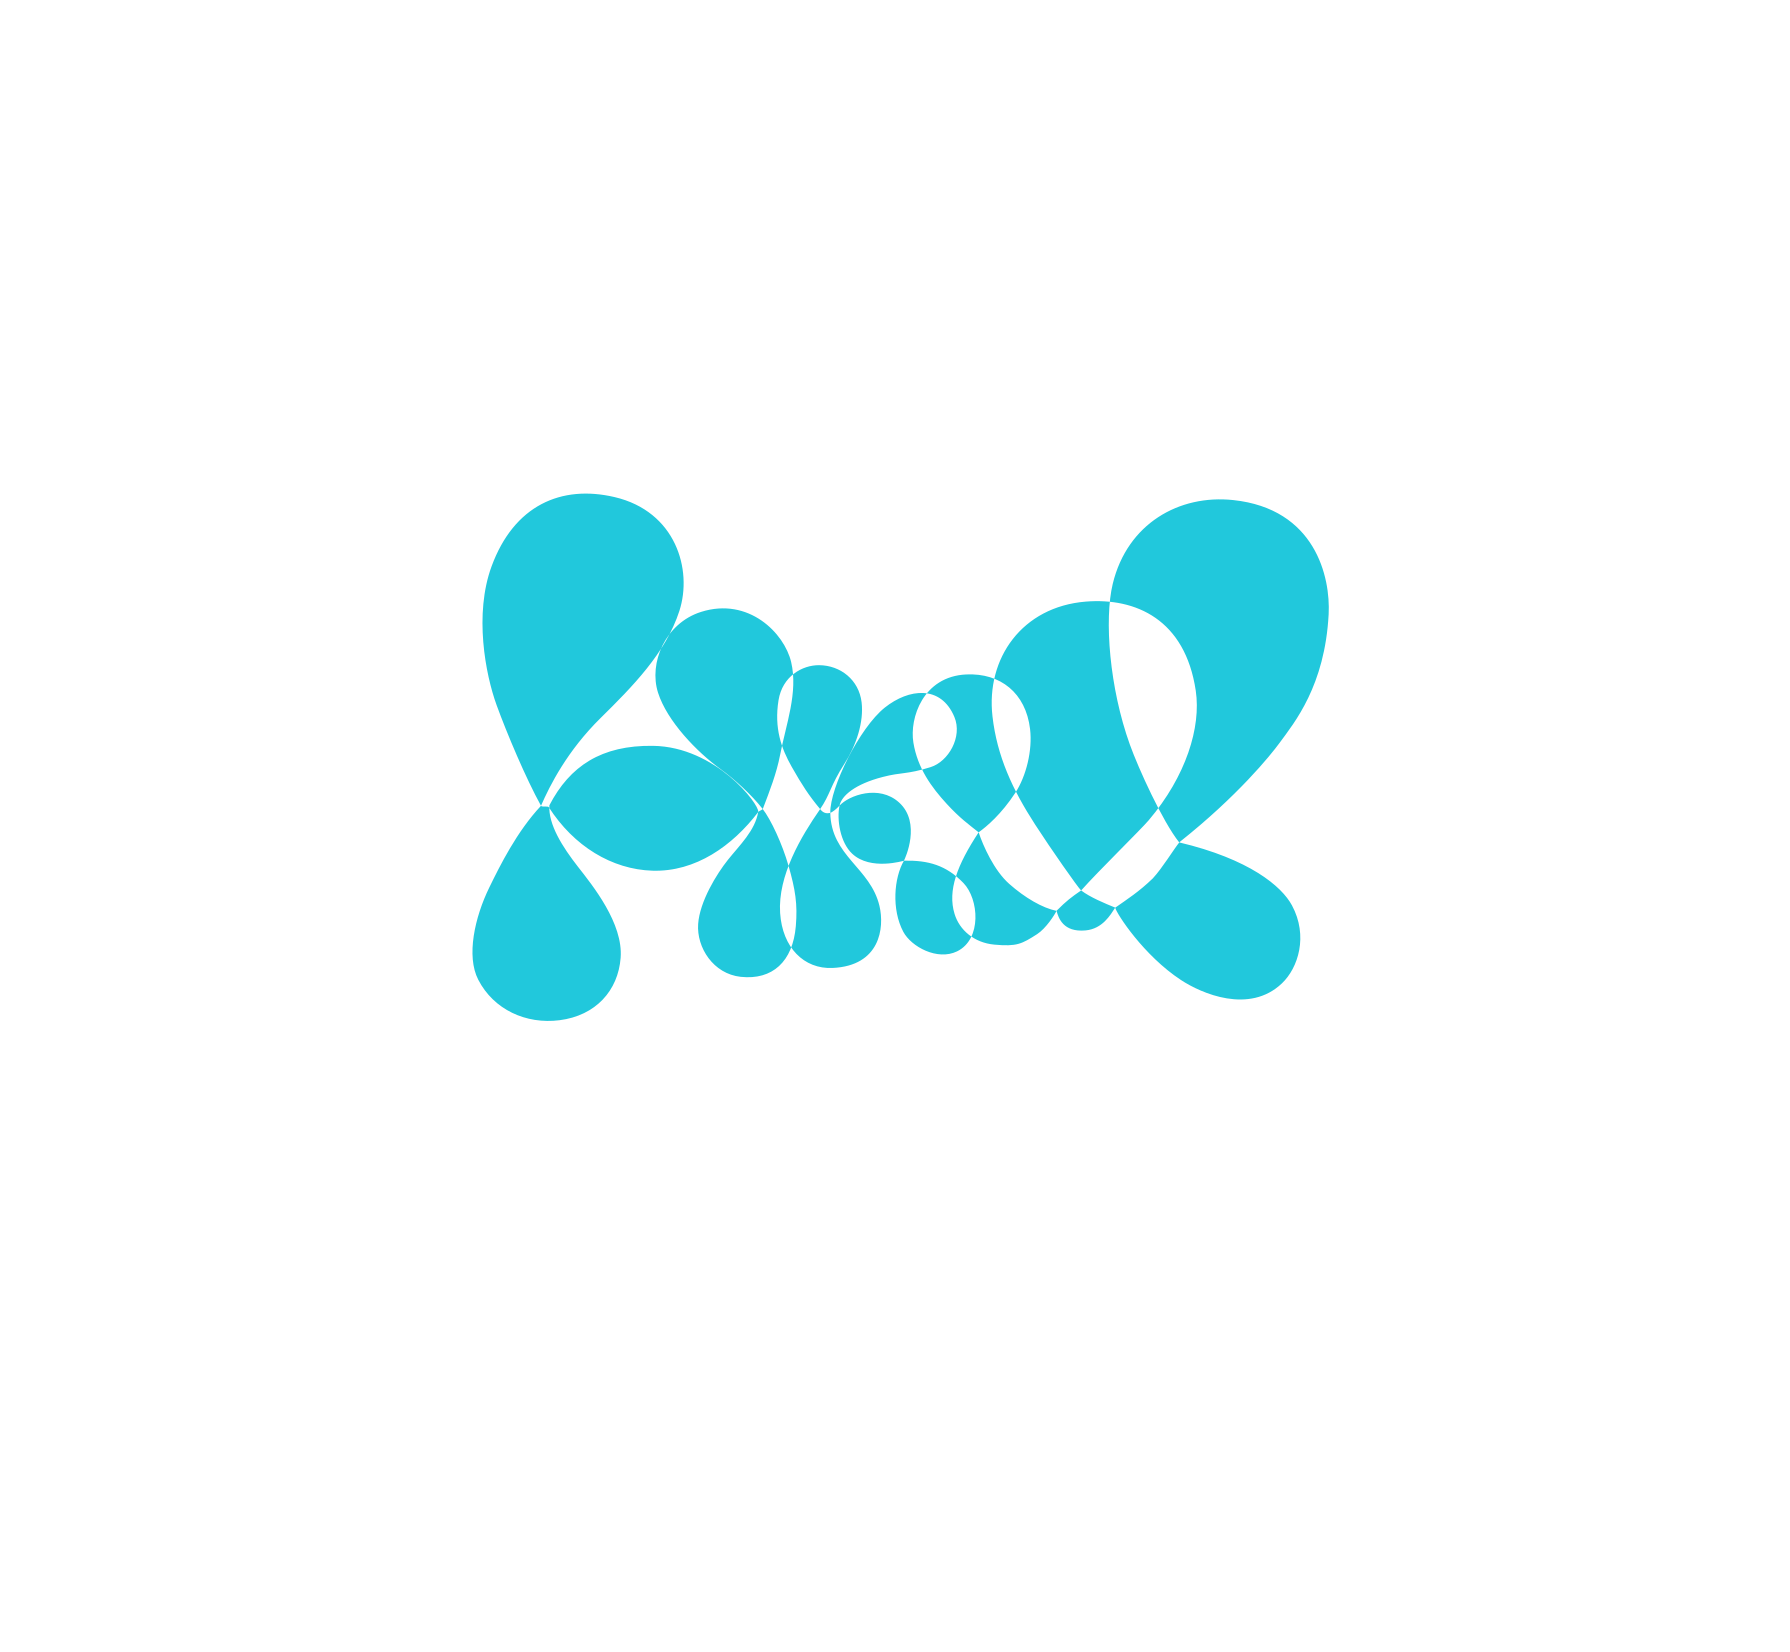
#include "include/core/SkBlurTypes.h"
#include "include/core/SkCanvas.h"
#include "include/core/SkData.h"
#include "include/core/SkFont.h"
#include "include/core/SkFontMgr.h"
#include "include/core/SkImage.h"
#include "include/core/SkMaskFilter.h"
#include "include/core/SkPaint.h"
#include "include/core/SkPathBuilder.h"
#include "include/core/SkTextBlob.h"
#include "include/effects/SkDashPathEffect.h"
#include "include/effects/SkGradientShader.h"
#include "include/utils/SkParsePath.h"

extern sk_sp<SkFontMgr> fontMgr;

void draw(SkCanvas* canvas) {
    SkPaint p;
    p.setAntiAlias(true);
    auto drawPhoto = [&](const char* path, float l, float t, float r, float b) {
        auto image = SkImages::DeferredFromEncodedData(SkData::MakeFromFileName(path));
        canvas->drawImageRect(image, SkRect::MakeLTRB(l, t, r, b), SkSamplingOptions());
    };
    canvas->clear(0xFFFFFFFF);
    drawPhoto("media/1.png", 472, 493, 1329, 1021);
}
